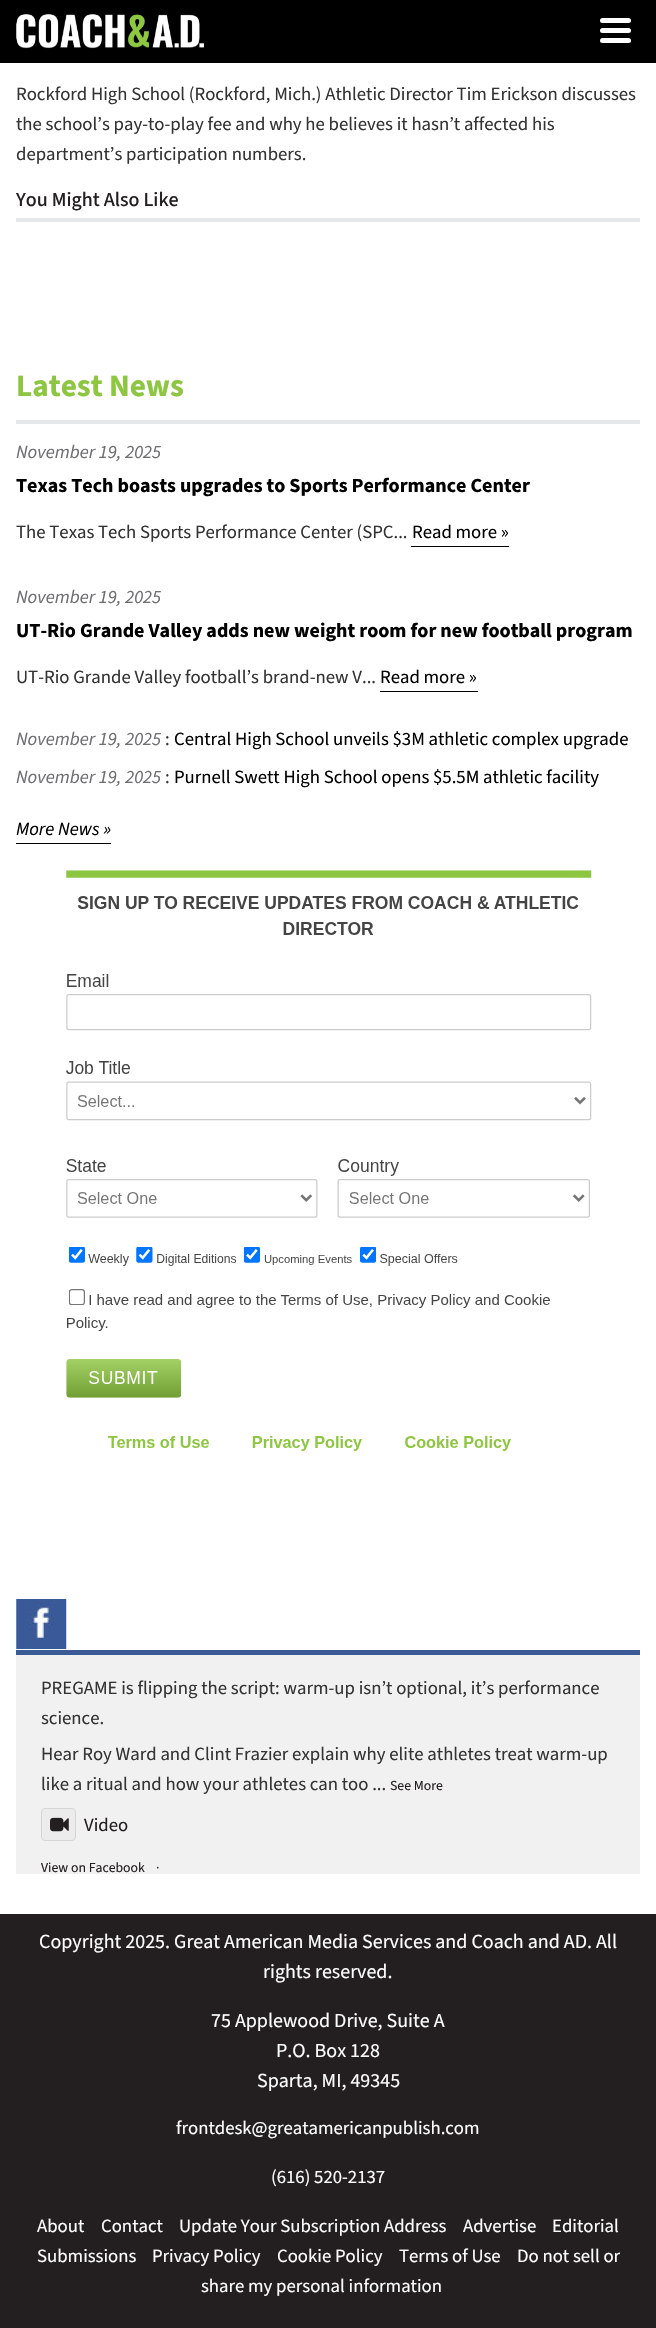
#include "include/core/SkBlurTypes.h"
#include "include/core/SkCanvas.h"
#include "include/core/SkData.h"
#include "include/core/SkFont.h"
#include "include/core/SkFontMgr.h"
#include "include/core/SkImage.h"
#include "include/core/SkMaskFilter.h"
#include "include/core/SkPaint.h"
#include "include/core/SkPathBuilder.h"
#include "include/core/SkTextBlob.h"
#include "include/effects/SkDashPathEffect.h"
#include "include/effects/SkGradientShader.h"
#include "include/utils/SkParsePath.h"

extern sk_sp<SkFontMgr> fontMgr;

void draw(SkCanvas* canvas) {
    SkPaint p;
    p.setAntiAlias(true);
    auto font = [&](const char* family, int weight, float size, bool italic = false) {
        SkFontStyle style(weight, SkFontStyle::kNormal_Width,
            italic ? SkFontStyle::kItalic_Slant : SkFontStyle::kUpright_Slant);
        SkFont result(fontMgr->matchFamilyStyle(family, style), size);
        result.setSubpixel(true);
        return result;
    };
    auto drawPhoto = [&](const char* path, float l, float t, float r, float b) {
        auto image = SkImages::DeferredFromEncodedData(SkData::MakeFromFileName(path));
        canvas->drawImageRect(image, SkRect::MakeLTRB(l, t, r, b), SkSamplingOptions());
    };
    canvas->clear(0xFFFFFFFF);
    p.setColor(0xFF000000);
    canvas->drawRect(SkRect::MakeLTRB(0, 0, 656, 63), p);
    p.setColor(0xFFFFFFFF);
    canvas->drawRoundRect(SkRect::MakeLTRB(600, 28, 631, 33), 2.5f, 2.5f, p);
    canvas->drawRoundRect(SkRect::MakeLTRB(600, 18, 631, 23), 2.5f, 2.5f, p);
    canvas->drawRoundRect(SkRect::MakeLTRB(600, 38, 631, 43), 2.5f, 2.5f, p);
    drawPhoto("media/1.png", 16, 14, 204, 49);
    auto font1 = font("Source Sans 3", 400, 18.75f);
    p.setColor(0xFF333333);
    {
        const struct { const char* s; float x, y; } items[] = {
            {"Rockford High School (Rockford, Mich.) Athletic Director Tim Erickson discusses", 16, 100},
            {"the school’s pay-to-play fee and why he believes it hasn’t affected his", 16, 130},
            {"department’s participation numbers.", 16, 160},
        };
        for (auto [s, x, y] : items) {
            canvas->drawString(s, x, y, font1, p);
        }
    }
    p.setColor(0xFFE6E7E8);
    canvas->drawRect(SkRect::MakeLTRB(16, 218, 640, 222), p);
    auto font2 = font("Source Sans 3", 500, 20);
    p.setColor(0xFF231F20);
    canvas->drawString("You Might Also Like", 16, 206, font2, p);
    p.setColor(0xFFE6E7E8);
    canvas->drawRect(SkRect::MakeLTRB(16, 420, 640, 424), p);
    auto font3 = font("Source Sans 3", 700, 31.25f);
    p.setColor(0xFF8DC640);
    canvas->drawString("Latest News", 16, 396, font3, p);
    auto font4 = font("Source Sans 3", 400, 18.75f, true);
    p.setColor(0xFF6D6E70);
    canvas->drawString("November 19, 2025", 16, 458, font4, p);
    auto font5 = font("Source Sans 3", 700, 20);
    p.setColor(0xFF000000);
    canvas->drawString("Texas Tech boasts upgrades to Sports Performance Center", 16, 492, font5, p);
    p.setColor(0xFF333333);
    canvas->drawString("The Texas Tech Sports Performance Center (SPC...", 16, 538, font1, p);
    p.setColor(0xFF000000);
    canvas->drawString("Read more »", 412, 538, font1, p);
    canvas->drawRect(SkRect::MakeLTRB(411, 546, 509, 547), p);
    p.setColor(0xFF6D6E70);
    canvas->drawString("November 19, 2025", 16, 603, font4, p);
    p.setColor(0xFF000000);
    canvas->drawString("UT-Rio Grande Valley adds new weight room for new football program", 16, 637, font5, p);
    p.setColor(0xFF333333);
    canvas->drawString("UT-Rio Grande Valley football’s brand-new V...", 16, 683, font1, p);
    p.setColor(0xFF000000);
    canvas->drawString("Read more »", 380, 683, font1, p);
    canvas->drawRect(SkRect::MakeLTRB(380, 691, 478, 692), p);
    p.setColor(0xFF6D6E70);
    canvas->drawString("November 19, 2025", 16, 745, font4, p);
    p.setColor(0xFF333333);
    canvas->drawString(":", 165, 745, font1, p);
    p.setColor(0xFF000000);
    canvas->drawString("Central High School unveils $3M athletic complex upgrade", 174, 745, font1, p);
    p.setColor(0xFF6D6E70);
    canvas->drawString("November 19, 2025", 16, 783, font4, p);
    p.setColor(0xFF333333);
    canvas->drawString(":", 165, 783, font1, p);
    p.setColor(0xFF000000);
    canvas->drawString("Purnell Swett High School opens $5.5M athletic facility", 174, 783, font1, p);
    canvas->drawString("More News »", 16, 835, font4, p);
    canvas->drawRect(SkRect::MakeLTRB(16, 843, 111, 844), p);
    drawPhoto("media/2.png", 66, 870, 592, 1451);
    drawPhoto("media/3.png", 16, 1599, 67, 1649);
    p.setColor(0xFF3B5B97);
    canvas->drawRect(SkRect::MakeLTRB(16, 1650, 640, 1655), p);
    p.setColor(0xFFF1F1F2);
    canvas->drawRect(SkRect::MakeLTRB(16, 1655, 640, 1874), p);
    p.setColor(0xFF333333);
    {
        const struct { const char* s; float x, y; } items[] = {
            {"PREGAME is flipping the script: warm-up isn’t optional, it’s performance", 41, 1694},
            {"science.", 41, 1724},
            {"Hear Roy Ward and Clint Frazier explain why elite athletes treat warm-up", 41, 1760},
            {"like a ritual and how your athletes can too ...", 41, 1790},
        };
        for (auto [s, x, y] : items) {
            canvas->drawString(s, x, y, font1, p);
        }
    }
    auto font6 = font("Source Sans 3", 400, 13.75f);
    p.setColor(0xFF231F20);
    canvas->drawString("See More", 390, 1790, font6, p);
    p.setColor(0xFFECECED);
    canvas->drawRoundRect(SkRect::MakeLTRB(41.5f, 1808.5f, 75.5f, 1840.5f), 3.5f, 3.5f, p);
    p.setStyle(SkPaint::kStroke_Style);
    p.setStrokeWidth(1);
    p.setColor(0xFFD5D5D5);
    canvas->drawRoundRect(SkRect::MakeLTRB(41.5f, 1808.5f, 75.5f, 1840.5f), 3.5f, 3.5f, p);
    drawPhoto("media/4.png", 50, 1817, 69, 1832);
    p.setStyle(SkPaint::kFill_Style);
    p.setColor(0xFF231F20);
    canvas->drawString("Video", 84, 1831, font1, p);
    canvas->drawString("View on Facebook", 41, 1872, font6, p);
    p.setColor(0xFF333333);
    canvas->drawString("·", 156, 1872, font6, p);
    p.setColor(0xFF231F20);
    canvas->drawRect(SkRect::MakeLTRB(0, 1914, 656, 2328), p);
    auto font7 = font("Source Sans 3", 400, 20);
    p.setColor(0xFFFFFFFF);
    {
        const struct { const char* s; float x, y; } items[] = {
            {"Copyright 2025. Great American Media Services and Coach and AD. All", 39, 1948},
            {"rights reserved.", 263, 1978},
            {"75 Applewood Drive, Suite A", 211, 2027},
            {"P.O. Box 128", 276, 2057},
            {"Sparta, MI, 49345", 257, 2087},
        };
        for (auto [s, x, y] : items) {
            canvas->drawString(s, x, y, font7, p);
        }
    }
    {
        const struct { const char* s; float x, y; } items[] = {
            {"frontdesk@greatamericanpublish.com", 176, 2134},
            {"(616) 520-2137", 271, 2183},
            {"About", 37, 2232},
            {"Contact", 101, 2232},
            {"Update Your Subscription Address", 179, 2232},
            {"Advertise", 463, 2232},
            {"Editorial", 552, 2232},
            {"Submissions", 37, 2262},
            {"Privacy Policy", 152, 2262},
            {"Cookie Policy", 277, 2262},
            {"Terms of Use", 399, 2262},
            {"Do not sell or", 517, 2262},
            {"share my personal information", 201, 2292},
        };
        for (auto [s, x, y] : items) {
            canvas->drawString(s, x, y, font1, p);
        }
    }
}
